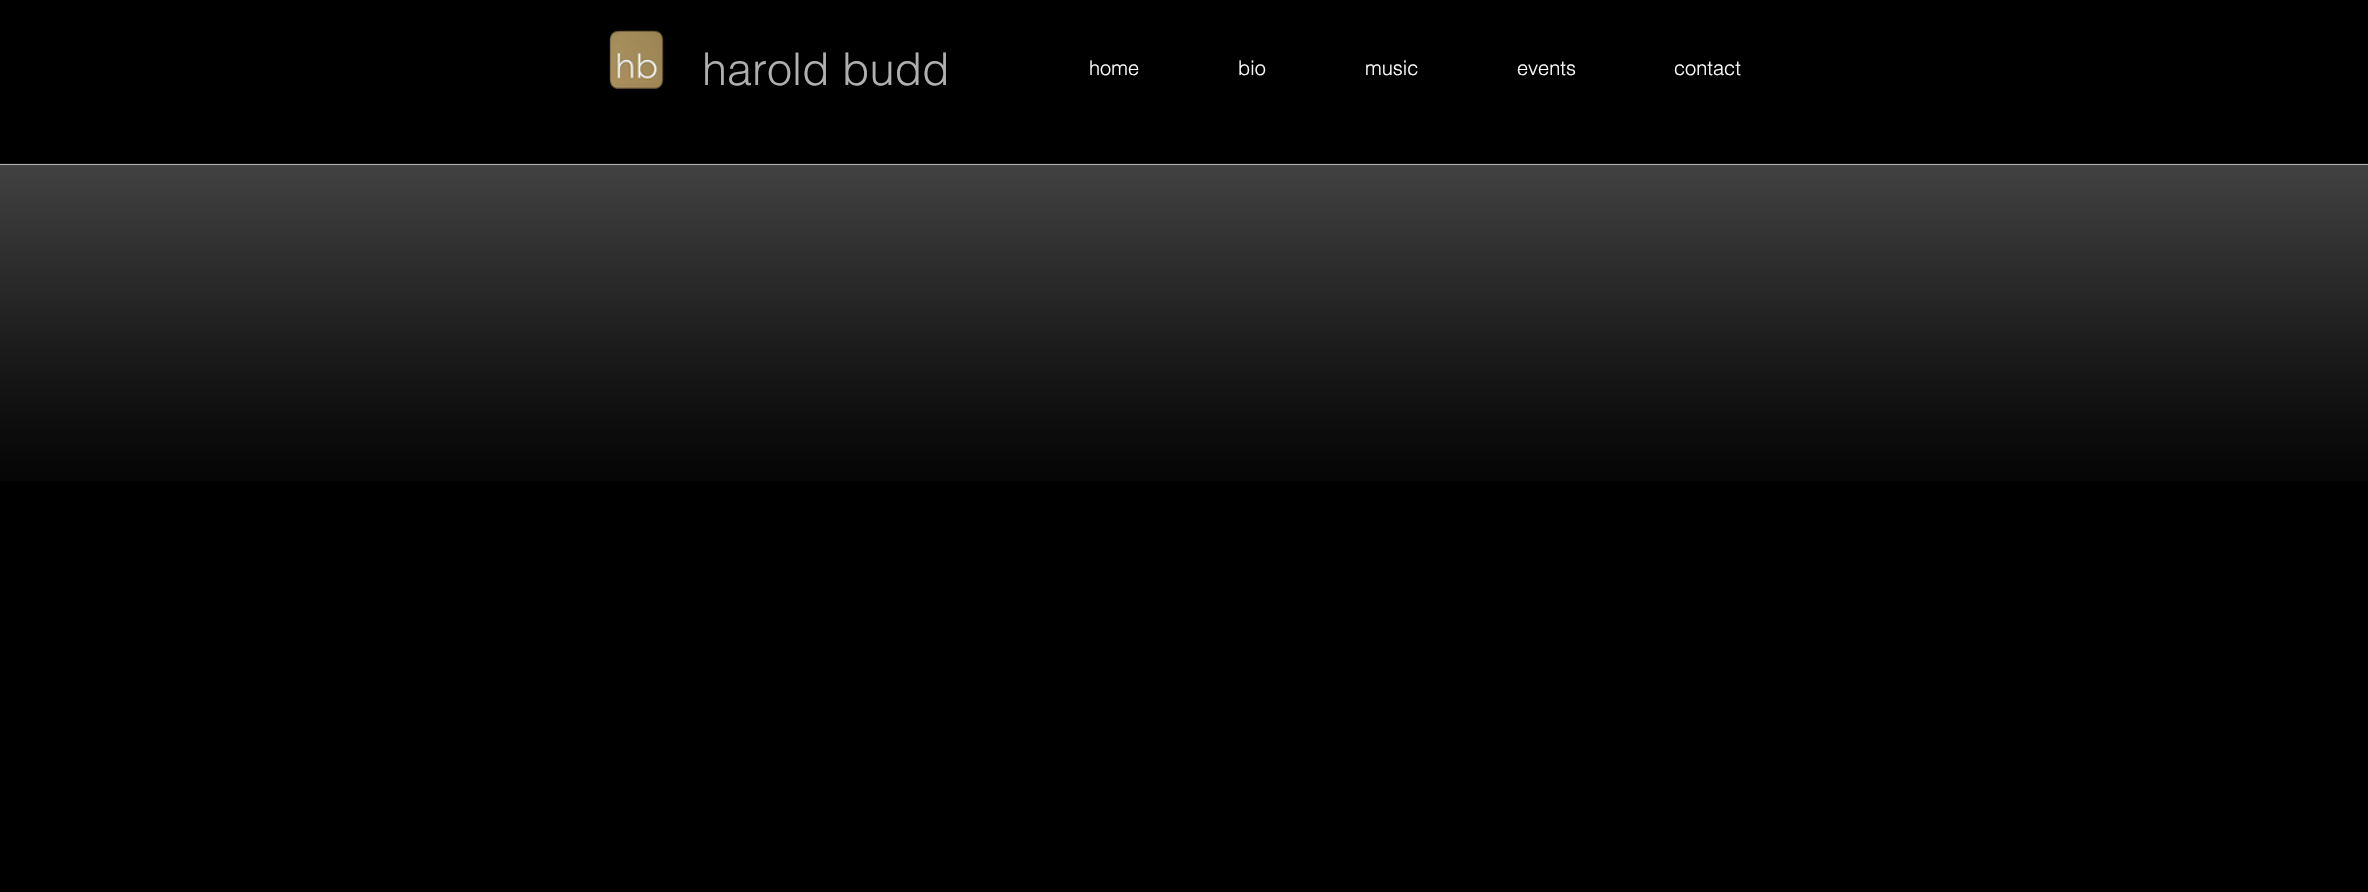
#include "include/core/SkBlurTypes.h"
#include "include/core/SkCanvas.h"
#include "include/core/SkData.h"
#include "include/core/SkFont.h"
#include "include/core/SkFontMgr.h"
#include "include/core/SkImage.h"
#include "include/core/SkMaskFilter.h"
#include "include/core/SkPaint.h"
#include "include/core/SkPathBuilder.h"
#include "include/core/SkTextBlob.h"
#include "include/effects/SkDashPathEffect.h"
#include "include/effects/SkGradientShader.h"
#include "include/utils/SkParsePath.h"

extern sk_sp<SkFontMgr> fontMgr;

void draw(SkCanvas* canvas) {
    SkPaint p;
    p.setAntiAlias(true);
    auto font = [&](const char* family, int weight, float size, bool italic = false) {
        SkFontStyle style(weight, SkFontStyle::kNormal_Width,
            italic ? SkFontStyle::kItalic_Slant : SkFontStyle::kUpright_Slant);
        SkFont result(fontMgr->matchFamilyStyle(family, style), size);
        result.setSubpixel(true);
        return result;
    };
    auto drawPhoto = [&](const char* path, float l, float t, float r, float b) {
        auto image = SkImages::DeferredFromEncodedData(SkData::MakeFromFileName(path));
        canvas->drawImageRect(image, SkRect::MakeLTRB(l, t, r, b), SkSamplingOptions());
    };
    canvas->clear(0xFF000000);
    drawPhoto("media/1.png", 609, 30, 664, 89);
    auto font1 = font("helvetica", 300, 45);
    p.setColor(0xFFAFAFAE);
    canvas->drawString("harold budd", 702, 85, font1, p);
    auto font2 = font("helvetica", 300, 20);
    p.setColor(0xFFFFFFFF);
    {
        const struct { const char* s; float x, y; } items[] = {
            {"home", 1089, 75},
            {"bio", 1238, 75},
            {"music", 1365, 75},
            {"events", 1517, 75},
            {"contact", 1674, 75},
        };
        for (auto [s, x, y] : items) {
            canvas->drawString(s, x, y, font2, p);
        }
    }
    drawPhoto("media/2.png", 0, 163, 2368, 481);
    p.setColor(0xFFB3B3B3);
    canvas->drawRect(SkRect::MakeLTRB(0, 164, 2368, 165), p);
}
